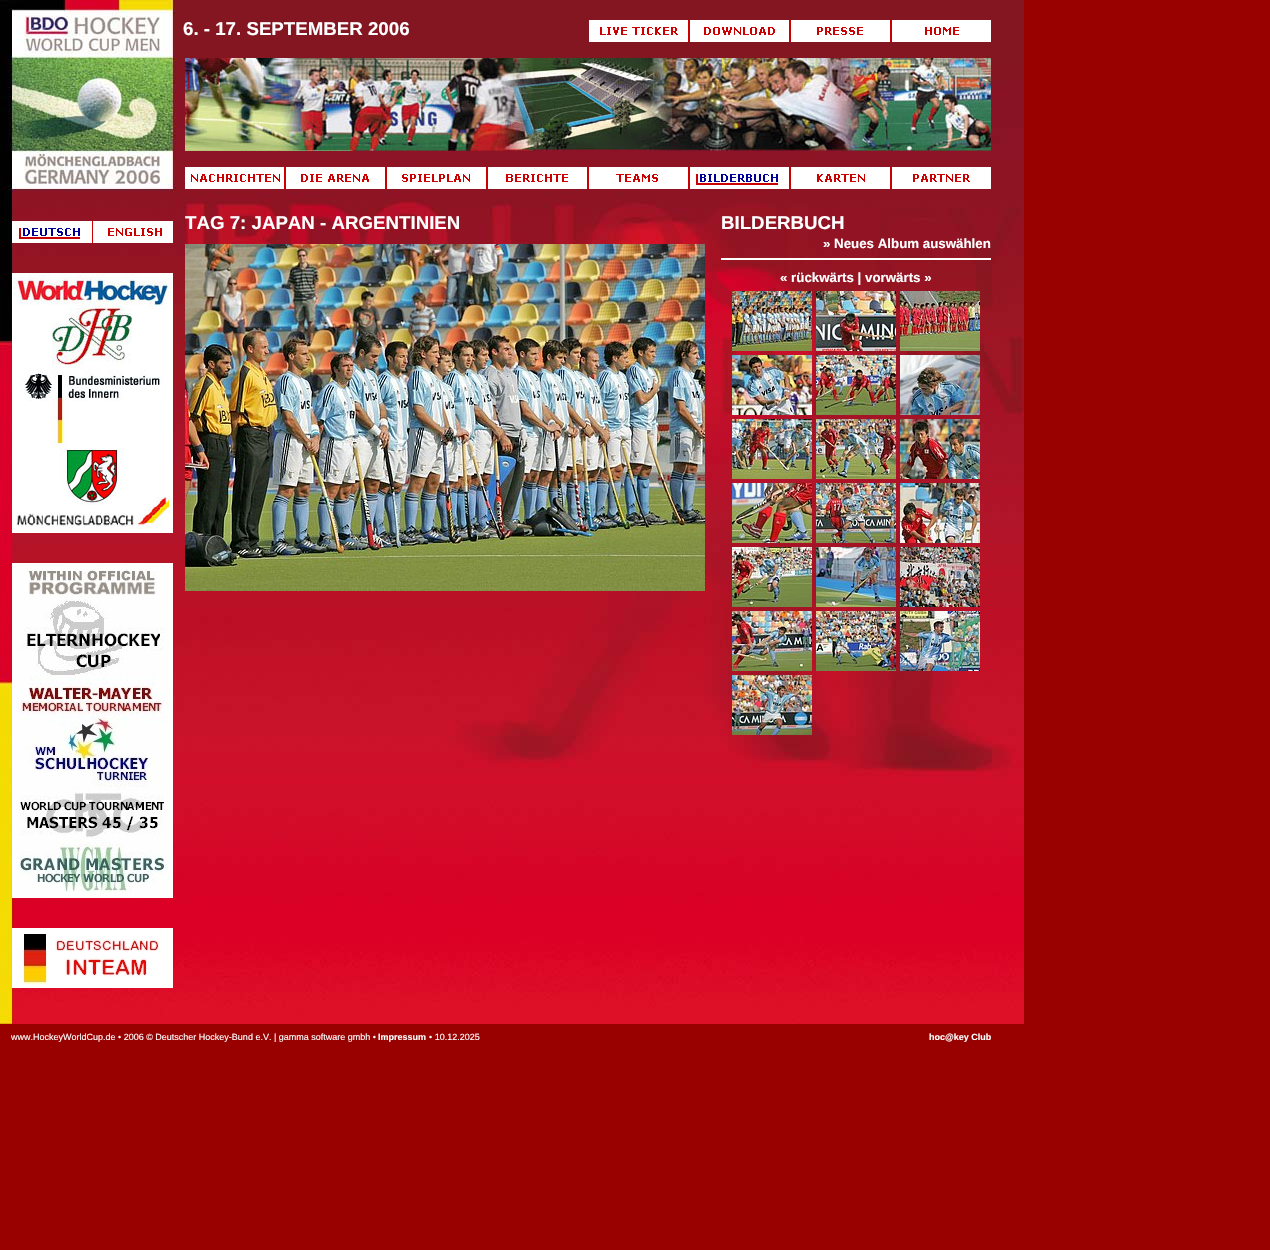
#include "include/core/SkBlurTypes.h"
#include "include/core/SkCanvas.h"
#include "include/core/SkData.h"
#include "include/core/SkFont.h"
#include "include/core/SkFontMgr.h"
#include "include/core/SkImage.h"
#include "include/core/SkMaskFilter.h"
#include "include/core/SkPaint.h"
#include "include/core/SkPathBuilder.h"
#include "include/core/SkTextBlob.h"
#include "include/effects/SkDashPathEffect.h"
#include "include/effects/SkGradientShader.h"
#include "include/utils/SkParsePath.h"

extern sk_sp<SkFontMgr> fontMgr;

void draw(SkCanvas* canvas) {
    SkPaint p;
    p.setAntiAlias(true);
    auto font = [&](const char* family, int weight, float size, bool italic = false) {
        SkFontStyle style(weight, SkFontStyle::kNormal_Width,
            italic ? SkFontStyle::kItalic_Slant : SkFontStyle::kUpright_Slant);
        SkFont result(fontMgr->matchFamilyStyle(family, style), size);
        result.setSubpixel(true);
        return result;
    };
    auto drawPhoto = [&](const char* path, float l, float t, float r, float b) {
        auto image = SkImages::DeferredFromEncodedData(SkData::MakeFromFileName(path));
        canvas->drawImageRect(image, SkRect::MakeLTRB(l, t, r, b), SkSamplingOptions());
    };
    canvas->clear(0xFF990000);
    drawPhoto("media/1.png", 0, 0, 1024, 1024);
    auto font1 = font("Liberation Sans", 700, 18.7f);
    p.setColor(0xFFFFFFFF);
    canvas->drawString("6. - 17. SEPTEMBER 2006", 183, 35, font1, p);
    drawPhoto("media/2.png", 589, 20, 689, 42);
    drawPhoto("media/3.png", 689, 20, 790, 42);
    drawPhoto("media/4.png", 790, 20, 891, 42);
    drawPhoto("media/5.png", 891, 20, 991, 42);
    drawPhoto("media/6.png", 185, 58, 991, 151);
    drawPhoto("media/7.png", 185, 167, 285, 189);
    drawPhoto("media/8.png", 285, 167, 386, 189);
    drawPhoto("media/9.png", 386, 167, 487, 189);
    drawPhoto("media/10.png", 487, 167, 588, 189);
    drawPhoto("media/11.png", 588, 167, 689, 189);
    drawPhoto("media/12.png", 689, 167, 790, 189);
    drawPhoto("media/13.png", 790, 167, 891, 189);
    drawPhoto("media/14.png", 891, 167, 991, 189);
    drawPhoto("media/15.png", 12, 221, 173, 243);
    drawPhoto("media/16.png", 12, 273, 173, 533);
    drawPhoto("media/17.png", 12, 563, 173, 898);
    drawPhoto("media/18.png", 12, 928, 173, 988);
    canvas->drawString("TAG 7: JAPAN - ARGENTINIEN", 185, 229, font1, p);
    canvas->drawString("BILDERBUCH", 721, 229, font1, p);
    auto font2 = font("Liberation Sans", 700, 13.3f);
    canvas->drawString("» Neues Album auswählen", 823, 248, font2, p);
    canvas->drawRect(SkRect::MakeLTRB(721, 258, 991, 260), p);
    canvas->drawString("« rückwärts | vorwärts »", 780, 282, font2, p);
    drawPhoto("media/19.png", 732, 291, 812, 351);
    drawPhoto("media/20.png", 816, 291, 896, 351);
    drawPhoto("media/21.png", 900, 291, 980, 351);
    drawPhoto("media/22.png", 732, 355, 812, 415);
    drawPhoto("media/23.png", 816, 355, 896, 415);
    drawPhoto("media/24.png", 900, 355, 980, 415);
    drawPhoto("media/25.png", 732, 419, 812, 479);
    drawPhoto("media/26.png", 816, 419, 896, 479);
    drawPhoto("media/27.png", 900, 419, 980, 479);
    drawPhoto("media/28.png", 732, 483, 812, 543);
    drawPhoto("media/29.png", 816, 483, 896, 543);
    drawPhoto("media/30.png", 900, 483, 980, 543);
    drawPhoto("media/31.png", 732, 547, 812, 607);
    drawPhoto("media/32.png", 816, 547, 896, 607);
    drawPhoto("media/33.png", 900, 547, 980, 607);
    drawPhoto("media/34.png", 732, 611, 812, 671);
    drawPhoto("media/35.png", 816, 611, 896, 671);
    drawPhoto("media/36.png", 900, 611, 980, 671);
    drawPhoto("media/37.png", 732, 675, 812, 735);
    auto font3 = font("Liberation Sans", 400, 9);
    canvas->drawString("www.HockeyWorldCup.de • 2006 © Deutscher Hockey-Bund e.V. | gamma software gmbh •", 11, 1040, font3, p);
    auto font4 = font("Liberation Sans", 700, 9);
    canvas->drawString("Impressum", 378, 1040, font4, p);
    canvas->drawString("• 10.12.2025", 429, 1040, font3, p);
    canvas->drawString("hoc@key Club", 929, 1040, font4, p);
    drawPhoto("media/38.png", 185, 244, 705, 591);
}
